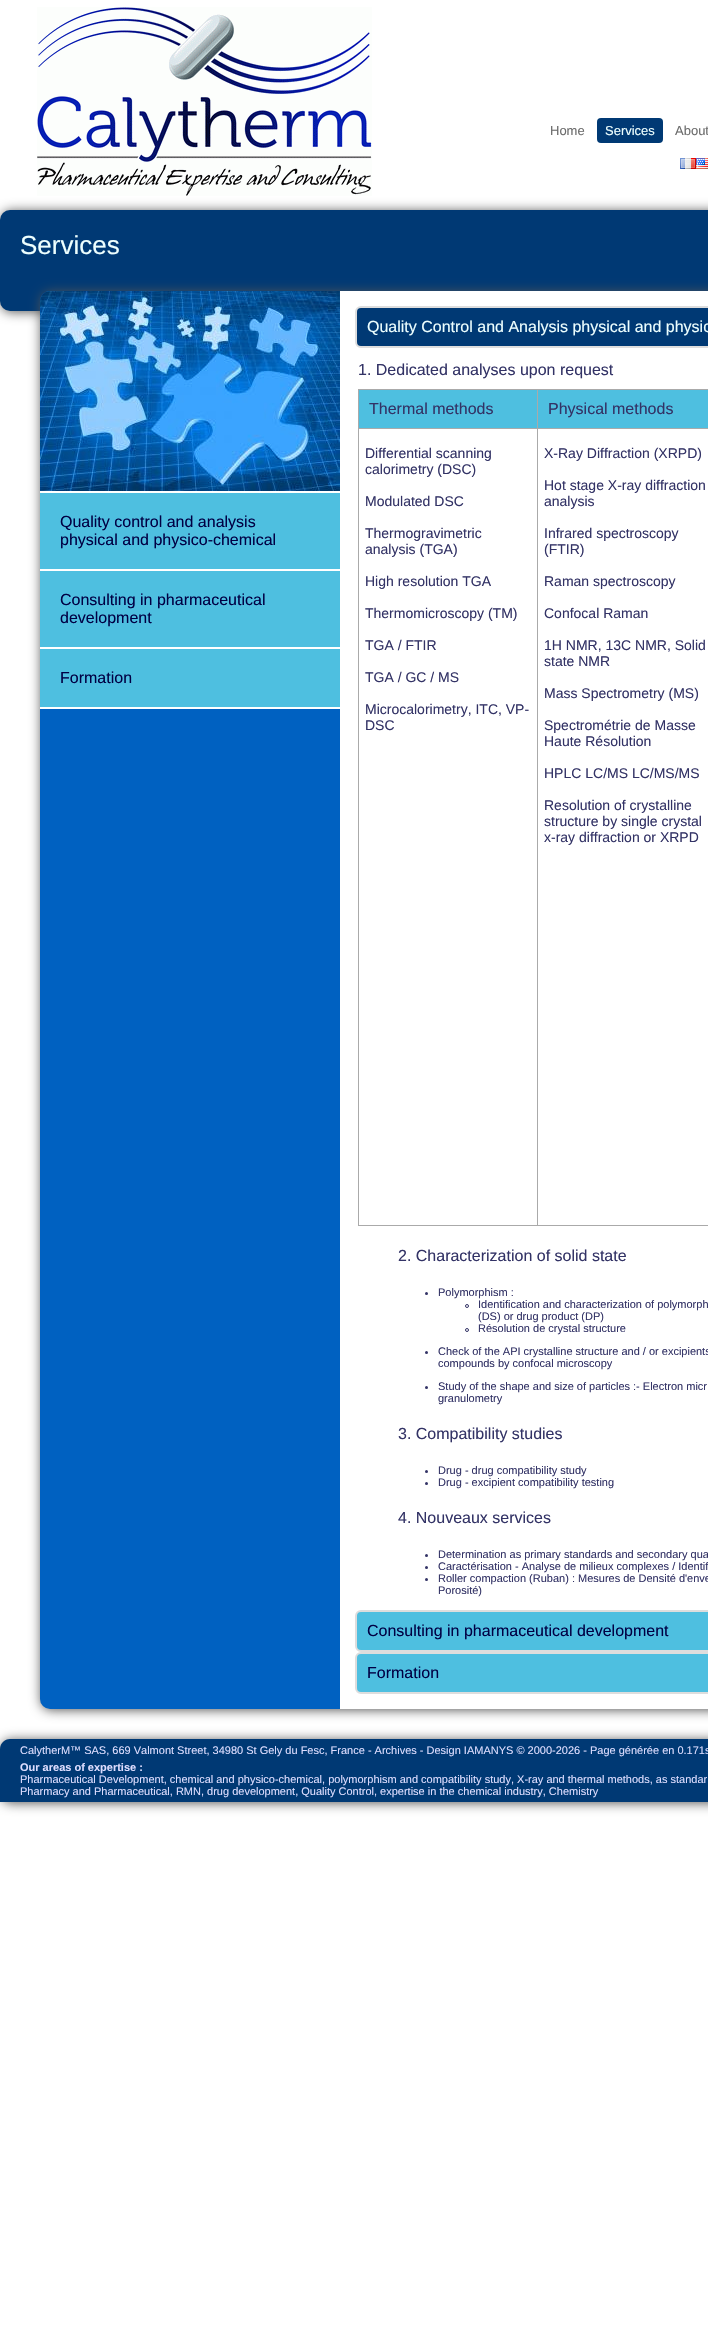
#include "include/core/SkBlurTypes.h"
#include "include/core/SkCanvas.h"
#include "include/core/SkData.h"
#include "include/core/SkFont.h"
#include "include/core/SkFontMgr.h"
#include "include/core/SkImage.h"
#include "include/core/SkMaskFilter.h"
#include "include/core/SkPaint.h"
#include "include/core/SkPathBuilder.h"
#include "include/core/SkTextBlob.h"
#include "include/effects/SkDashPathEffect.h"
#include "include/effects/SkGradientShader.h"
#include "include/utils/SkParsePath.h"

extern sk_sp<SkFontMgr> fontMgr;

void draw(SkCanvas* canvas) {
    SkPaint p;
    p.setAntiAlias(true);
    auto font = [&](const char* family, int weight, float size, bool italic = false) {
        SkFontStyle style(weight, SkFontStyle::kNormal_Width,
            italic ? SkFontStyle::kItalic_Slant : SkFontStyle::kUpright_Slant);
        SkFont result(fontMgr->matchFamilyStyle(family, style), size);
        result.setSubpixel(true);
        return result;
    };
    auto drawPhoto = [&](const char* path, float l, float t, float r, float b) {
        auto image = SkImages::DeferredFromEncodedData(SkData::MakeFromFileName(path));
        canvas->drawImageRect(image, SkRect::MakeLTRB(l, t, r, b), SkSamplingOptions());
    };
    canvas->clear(0xFFFFFFFF);
    p.setColor(0xFF555555);
    p.setMaskFilter(SkMaskFilter::MakeBlur(kNormal_SkBlurStyle, 6));
    canvas->drawRoundRect(SkRect::MakeLTRB(1, 211, 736, 312), 10, 10, p);
    p.setMaskFilter(nullptr);
    drawPhoto("media/1.png", 37, 7, 372, 196);
    auto font1 = font("Liberation Sans", 400, 13);
    p.setColor(0xFF6C6C6C);
    canvas->drawString("Home", 550, 135, font1, p);
    p.setColor(0xFF003974);
    canvas->drawRoundRect(SkRect::MakeLTRB(597, 118, 663, 143), 4, 4, p);
    p.setColor(0xFFEDFFFF);
    canvas->drawString("Services", 605, 135, font1, p);
    p.setColor(0xFF6C6C6C);
    canvas->drawString("About", 675, 135, font1, p);
    drawPhoto("media/2.png", 680, 158, 696, 169);
    drawPhoto("media/3.png", 696, 158, 708, 169);
    p.setColor(0xFF003974);
    canvas->drawRoundRect(SkRect::MakeLTRB(0, 210, 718, 311), 10, 10, p);
    auto font2 = font("Liberation Sans", 400, 26);
    p.setColor(0xFFEDFFFF);
    canvas->drawString("Services", 20, 254, font2, p);
    p.setColor(0xFF555555);
    p.setMaskFilter(SkMaskFilter::MakeBlur(kNormal_SkBlurStyle, 6));
    canvas->drawRoundRect(SkRect::MakeLTRB(41, 292, 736, 1710), 10, 10, p);
    p.setMaskFilter(nullptr);
    p.setColor(0xFF0061C1);
    canvas->drawRoundRect(SkRect::MakeLTRB(40, 291, 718, 1709), 10, 10, p);
    drawPhoto("media/4.png", 40, 291, 340, 491);
    {
        const struct { float l, t, r, b; SkColor color; } items[] = {
            {40, 491, 340, 493, 0xFFFFFFFF},
            {40, 493, 340, 569, 0xFF4EBFE0},
            {40, 569, 340, 571, 0xFFFFFFFF},
        };
        for (auto [l, t, r, b, color] : items) {
            p.setColor(color);
            canvas->drawRect(SkRect::MakeLTRB(l, t, r, b), p);
        }
    }
    auto font3 = font("Liberation Sans", 400, 16);
    p.setColor(0xFF000044);
    canvas->drawString("Quality control and analysis", 60, 527, font3, p);
    canvas->drawString("physical and physico-chemical", 60, 545, font3, p);
    p.setColor(0xFF4EBFE0);
    canvas->drawRect(SkRect::MakeLTRB(40, 571, 340, 647), p);
    p.setColor(0xFFFFFFFF);
    canvas->drawRect(SkRect::MakeLTRB(40, 647, 340, 649), p);
    p.setColor(0xFF000044);
    canvas->drawString("Consulting in pharmaceutical", 60, 605, font3, p);
    canvas->drawString("development", 60, 623, font3, p);
    p.setColor(0xFF4EBFE0);
    canvas->drawRect(SkRect::MakeLTRB(40, 649, 340, 707), p);
    p.setColor(0xFFFFFFFF);
    canvas->drawRect(SkRect::MakeLTRB(40, 707, 340, 709), p);
    p.setColor(0xFF000044);
    canvas->drawString("Formation", 60, 683, font3, p);
    p.setColor(0xFFFFFFFF);
    canvas->drawRect(SkRect::MakeLTRB(340, 291, 708, 1709), p);
    p.setColor(0xFF003974);
    canvas->drawRoundRect(SkRect::MakeLTRB(356, 307, 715, 347), 5, 5, p);
    p.setStyle(SkPaint::kStroke_Style);
    p.setStrokeWidth(2);
    p.setColor(0xFFDDDDDD);
    canvas->drawRoundRect(SkRect::MakeLTRB(356, 307, 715, 347), 5, 5, p);
    p.setStyle(SkPaint::kFill_Style);
    p.setColor(0xFFEDFFFF);
    canvas->drawString("Quality Control and Analysis physical and physic", 367, 332, font3, p);
    p.setColor(0xFF333366);
    canvas->drawString("1. Dedicated analyses upon request", 358, 375, font3, p);
    {
        const struct { float l, t, r, b; SkColor color; } items[] = {
            {359, 390, 708, 428, 0xFF4EBFE0},
            {537, 389, 708, 390, 0xFFAAAAAA},
            {537, 428, 708, 429, 0xFFAAAAAA},
            {537, 1225, 708, 1226, 0xFFAAAAAA},
            {537, 428, 538, 1226, 0xFFAAAAAA},
            {358, 428, 538, 429, 0xFFAAAAAA},
            {537, 389, 538, 429, 0xFFAAAAAA},
            {358, 389, 538, 390, 0xFFAAAAAA},
            {358, 1225, 538, 1226, 0xFFAAAAAA},
            {358, 428, 359, 1226, 0xFFAAAAAA},
            {358, 389, 359, 429, 0xFFAAAAAA},
        };
        for (auto [l, t, r, b, color] : items) {
            p.setColor(color);
            canvas->drawRect(SkRect::MakeLTRB(l, t, r, b), p);
        }
    }
    p.setColor(0xFF333366);
    canvas->drawString("Thermal methods", 369, 414, font3, p);
    canvas->drawString("Physical methods", 548, 414, font3, p);
    auto font4 = font("Liberation Sans", 400, 14);
    {
        const struct { const char* s; float x, y; } items[] = {
            {"Differential scanning", 365, 458},
            {"calorimetry (DSC)", 365, 474},
            {"Modulated DSC", 365, 506},
            {"Thermogravimetric", 365, 538},
            {"analysis (TGA)", 365, 554},
            {"High resolution TGA", 365, 586},
            {"Thermomicroscopy (TM)", 365, 618},
            {"TGA / FTIR", 365, 650},
            {"TGA / GC / MS", 365, 682},
            {"Microcalorimetry, ITC, VP-", 365, 714},
            {"DSC", 365, 730},
            {"X-Ray Diffraction (XRPD)", 544, 458},
            {"Hot stage X-ray diffraction", 544, 490},
            {"analysis", 544, 506},
            {"Infrared spectroscopy", 544, 538},
            {"(FTIR)", 544, 554},
            {"Raman spectroscopy", 544, 586},
            {"Confocal Raman", 544, 618},
            {"1H NMR, 13C NMR, Solid", 544, 650},
            {"state NMR", 544, 666},
            {"Mass Spectrometry (MS)", 544, 698},
            {"Spectrométrie de Masse", 544, 730},
            {"Haute Résolution", 544, 746},
            {"HPLC LC/MS LC/MS/MS", 544, 778},
            {"Resolution of crystalline", 544, 810},
            {"structure by single crystal", 544, 826},
            {"x-ray diffraction or XRPD", 544, 842},
        };
        for (auto [s, x, y] : items) {
            canvas->drawString(s, x, y, font4, p);
        }
    }
    canvas->drawString("2. Characterization of solid state", 398, 1261, font3, p);
    canvas->drawCircle(426.5f, 1293.5f, 1.5f, p);
    auto font5 = font("Liberation Sans", 400, 11);
    canvas->drawString("Polymorphism :", 438, 1296, font5, p);
    p.setStyle(SkPaint::kStroke_Style);
    p.setStrokeWidth(1);
    canvas->drawCircle(467, 1306, 1.5f, p);
    p.setStyle(SkPaint::kFill_Style);
    canvas->drawString("Identification and characterization of polymorph", 478, 1308, font5, p);
    canvas->drawString("(DS) or drug product (DP)", 478, 1320, font5, p);
    p.setStyle(SkPaint::kStroke_Style);
    canvas->drawCircle(467, 1330, 1.5f, p);
    p.setStyle(SkPaint::kFill_Style);
    canvas->drawString("Résolution de crystal structure", 478, 1332, font5, p);
    canvas->drawCircle(426.5f, 1352.5f, 1.5f, p);
    canvas->drawString("Check of the API crystalline structure and / or excipients", 438, 1355, font5, p);
    canvas->drawString("compounds by confocal microscopy", 438, 1367, font5, p);
    canvas->drawCircle(426.5f, 1387.5f, 1.5f, p);
    canvas->drawString("Study of the shape and size of particles :- Electron micr", 438, 1390, font5, p);
    canvas->drawString("granulometry", 438, 1402, font5, p);
    canvas->drawString("3. Compatibility studies", 398, 1439, font3, p);
    canvas->drawCircle(426.5f, 1471.5f, 1.5f, p);
    canvas->drawString("Drug - drug compatibility study", 438, 1474, font5, p);
    canvas->drawCircle(426.5f, 1483.5f, 1.5f, p);
    canvas->drawString("Drug - excipient compatibility testing", 438, 1486, font5, p);
    canvas->drawString("4. Nouveaux services", 398, 1523, font3, p);
    canvas->drawCircle(426.5f, 1555.5f, 1.5f, p);
    canvas->drawString("Determination as primary standards and secondary qua", 438, 1558, font5, p);
    canvas->drawCircle(426.5f, 1567.5f, 1.5f, p);
    canvas->drawString("Caractérisation - Analyse de milieux complexes / Identif", 438, 1570, font5, p);
    canvas->drawCircle(426.5f, 1579.5f, 1.5f, p);
    canvas->drawString("Roller compaction (Ruban) : Mesures de Densité d'enve", 438, 1582, font5, p);
    canvas->drawString("Porosité)", 438, 1594, font5, p);
    p.setColor(0xFF4EBFE0);
    canvas->drawRoundRect(SkRect::MakeLTRB(356, 1611, 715, 1651), 5, 5, p);
    p.setStyle(SkPaint::kStroke_Style);
    p.setStrokeWidth(2);
    p.setColor(0xFFDDDDDD);
    canvas->drawRoundRect(SkRect::MakeLTRB(356, 1611, 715, 1651), 5, 5, p);
    p.setStyle(SkPaint::kFill_Style);
    p.setColor(0xFF000044);
    canvas->drawString("Consulting in pharmaceutical development", 367, 1636, font3, p);
    p.setColor(0xFF4EBFE0);
    canvas->drawRoundRect(SkRect::MakeLTRB(356, 1653, 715, 1693), 5, 5, p);
    p.setStyle(SkPaint::kStroke_Style);
    p.setColor(0xFFDDDDDD);
    canvas->drawRoundRect(SkRect::MakeLTRB(356, 1653, 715, 1693), 5, 5, p);
    p.setStyle(SkPaint::kFill_Style);
    p.setColor(0xFF000044);
    canvas->drawString("Formation", 367, 1678, font3, p);
    p.setColor(0xFF555555);
    p.setMaskFilter(SkMaskFilter::MakeBlur(kNormal_SkBlurStyle, 6));
    canvas->drawRoundRect(SkRect::MakeLTRB(1, 1740, 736, 1803), 10, 10, p);
    p.setMaskFilter(nullptr);
    p.setColor(0xFF003974);
    canvas->drawPath(SkPathBuilder().moveTo(10, 1739).lineTo(708, 1739).cubicTo(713.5f, 1739, 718, 1743.5f, 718, 1749).lineTo(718, 1802).lineTo(0, 1802).lineTo(0, 1749).cubicTo(0, 1743.5f, 4.5f, 1739, 10, 1739).close().detach(), p);
    p.setColor(0xFFDDDDFF);
    canvas->drawString("CalytherM™ SAS, 669 Valmont Street, 34980 St Gely du Fesc, France - Archives - Design IAMANYS © 2000-2026 - Page générée en 0.171s", 20, 1754, font5, p);
    auto font6 = font("Liberation Sans", 700, 11);
    canvas->drawString("Our areas of expertise :", 20, 1771, font6, p);
    canvas->drawString("Pharmaceutical Development, chemical and physico-chemical, polymorphism and compatibility study, X-ray and thermal methods, as standar", 20, 1783, font5, p);
    canvas->drawString("Pharmacy and Pharmaceutical, RMN, drug development, Quality Control, expertise in the chemical industry, Chemistry", 20, 1795, font5, p);
}
